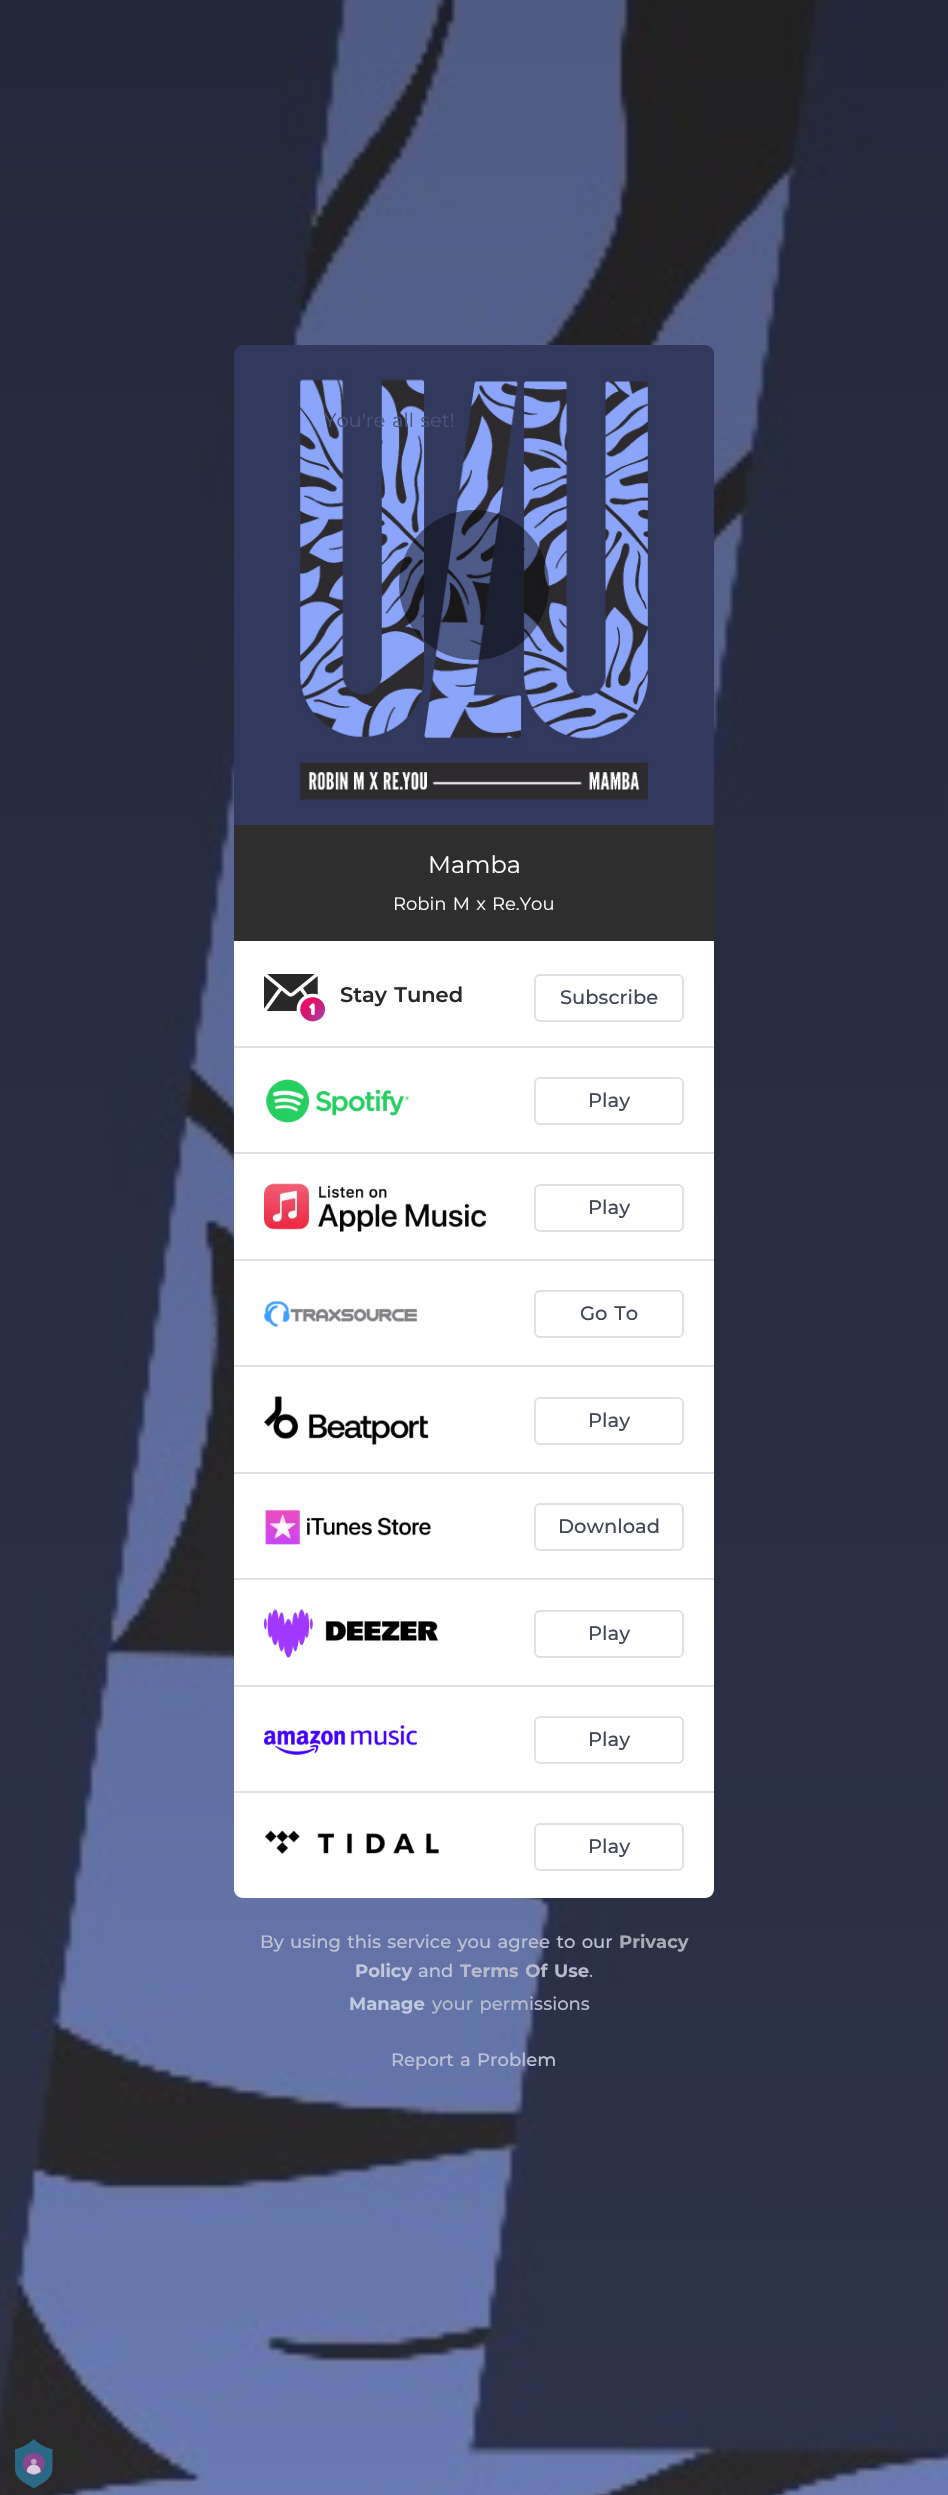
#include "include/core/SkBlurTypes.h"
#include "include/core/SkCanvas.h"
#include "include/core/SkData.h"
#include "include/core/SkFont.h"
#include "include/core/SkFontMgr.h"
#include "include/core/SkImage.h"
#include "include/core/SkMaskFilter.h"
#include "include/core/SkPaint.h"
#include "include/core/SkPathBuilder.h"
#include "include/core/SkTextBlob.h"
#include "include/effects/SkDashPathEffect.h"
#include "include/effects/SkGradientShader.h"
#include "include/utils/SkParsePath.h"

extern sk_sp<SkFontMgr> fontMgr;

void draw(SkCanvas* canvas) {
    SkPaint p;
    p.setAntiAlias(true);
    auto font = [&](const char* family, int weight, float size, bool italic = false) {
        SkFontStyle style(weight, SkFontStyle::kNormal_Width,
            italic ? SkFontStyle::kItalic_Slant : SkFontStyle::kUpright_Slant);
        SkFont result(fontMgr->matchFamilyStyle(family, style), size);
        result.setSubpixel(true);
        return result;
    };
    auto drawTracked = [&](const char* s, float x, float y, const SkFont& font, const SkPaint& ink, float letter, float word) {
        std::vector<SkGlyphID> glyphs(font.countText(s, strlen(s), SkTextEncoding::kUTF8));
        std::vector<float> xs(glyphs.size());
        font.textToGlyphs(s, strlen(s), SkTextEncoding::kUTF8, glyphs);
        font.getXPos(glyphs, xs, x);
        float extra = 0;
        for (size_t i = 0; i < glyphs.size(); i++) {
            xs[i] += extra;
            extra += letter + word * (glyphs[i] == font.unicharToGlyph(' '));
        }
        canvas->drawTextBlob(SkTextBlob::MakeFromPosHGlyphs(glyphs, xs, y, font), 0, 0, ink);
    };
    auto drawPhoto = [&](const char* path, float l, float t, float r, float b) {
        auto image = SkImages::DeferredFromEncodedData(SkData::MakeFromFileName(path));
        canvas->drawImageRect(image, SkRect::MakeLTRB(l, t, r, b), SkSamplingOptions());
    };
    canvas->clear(0xFFFFFFFF);
    drawPhoto("media/1.png", 0, 0, 948, 2495);
    drawPhoto("media/2.png", 234, 345, 714, 825);
    p.setColor(0x73000000);
    canvas->drawCircle(474, 585, 75, p);
    auto font1 = font("Montserrat", 400, 19.5f);
    p.setColor(0xFF495481);
    drawTracked("You're all set!", 324, 427, font1, p, 0, 1.5f);
    p.setColor(0xFF2E2E2E);
    canvas->drawRect(SkRect::MakeLTRB(234, 825, 714, 941), p);
    auto font2 = font("Montserrat", 400, 24);
    p.setColor(0xFFFFFFFF);
    canvas->drawString("Mamba", 428, 873, font2, p);
    auto font3 = font("Montserrat", 400, 18);
    drawTracked("Robin M x Re.You", 393, 910, font3, p, 0, 1.5f);
    canvas->drawPath(SkPathBuilder().moveTo(234, 941).lineTo(714, 941).lineTo(714, 1889).cubicTo(714, 1894, 710, 1898, 705, 1898).lineTo(243, 1898).cubicTo(238, 1898, 234, 1894, 234, 1889).close().detach(), p);
    p.setColor(0xFFE1E1E4);
    canvas->drawRect(SkRect::MakeLTRB(234, 1046, 714, 1048), p);
    drawPhoto("media/3.png", 264, 974, 326, 1022);
    auto font4 = font("Montserrat", 600, 21);
    p.setColor(0xFF282828);
    drawTracked("Stay Tuned", 340, 1002, font4, p, 0, 1.5f);
    p.setStyle(SkPaint::kStroke_Style);
    p.setStrokeWidth(2);
    p.setColor(0xFFE1E1E4);
    canvas->drawRoundRect(SkRect::MakeLTRB(535, 975, 683, 1021), 5, 5, p);
    auto font5 = font("Montserrat", 500, 19.5f);
    p.setStyle(SkPaint::kFill_Style);
    p.setColor(0xFF414754);
    canvas->drawString("Subscribe", 560, 1004, font5, p);
    p.setColor(0xFFE1E1E4);
    canvas->drawRect(SkRect::MakeLTRB(234, 1152, 714, 1154), p);
    drawPhoto("media/4.png", 265, 1079, 410, 1123);
    p.setStyle(SkPaint::kStroke_Style);
    canvas->drawRoundRect(SkRect::MakeLTRB(535, 1078, 683, 1124), 5, 5, p);
    p.setStyle(SkPaint::kFill_Style);
    p.setColor(0xFF414754);
    canvas->drawString("Play", 588, 1107, font5, p);
    p.setColor(0xFFE1E1E4);
    canvas->drawRect(SkRect::MakeLTRB(234, 1259, 714, 1261), p);
    drawPhoto("media/5.png", 264, 1183, 486, 1232);
    p.setStyle(SkPaint::kStroke_Style);
    canvas->drawRoundRect(SkRect::MakeLTRB(535, 1185, 683, 1231), 5, 5, p);
    p.setStyle(SkPaint::kFill_Style);
    p.setColor(0xFF414754);
    canvas->drawString("Play", 588, 1214, font5, p);
    p.setColor(0xFFE1E1E4);
    canvas->drawRect(SkRect::MakeLTRB(234, 1365, 714, 1367), p);
    drawPhoto("media/6.png", 264, 1301, 417, 1327);
    p.setStyle(SkPaint::kStroke_Style);
    canvas->drawRoundRect(SkRect::MakeLTRB(535, 1291, 683, 1337), 5, 5, p);
    p.setStyle(SkPaint::kFill_Style);
    p.setColor(0xFF414754);
    drawTracked("Go To", 580, 1320, font5, p, 0, 1.5f);
    p.setColor(0xFFE1E1E4);
    canvas->drawRect(SkRect::MakeLTRB(234, 1472, 714, 1474), p);
    drawPhoto("media/7.png", 264, 1396, 429, 1445);
    p.setStyle(SkPaint::kStroke_Style);
    canvas->drawRoundRect(SkRect::MakeLTRB(535, 1398, 683, 1444), 5, 5, p);
    p.setStyle(SkPaint::kFill_Style);
    p.setColor(0xFF414754);
    canvas->drawString("Play", 588, 1427, font5, p);
    p.setColor(0xFFE1E1E4);
    canvas->drawRect(SkRect::MakeLTRB(234, 1578, 714, 1580), p);
    drawPhoto("media/8.png", 265, 1509, 431, 1545);
    p.setStyle(SkPaint::kStroke_Style);
    canvas->drawRoundRect(SkRect::MakeLTRB(535, 1504, 683, 1550), 5, 5, p);
    p.setStyle(SkPaint::kFill_Style);
    p.setColor(0xFF414754);
    canvas->drawString("Download", 558, 1533, font5, p);
    p.setColor(0xFFE1E1E4);
    canvas->drawRect(SkRect::MakeLTRB(234, 1685, 714, 1687), p);
    drawPhoto("media/9.png", 264, 1609, 438, 1658);
    p.setStyle(SkPaint::kStroke_Style);
    canvas->drawRoundRect(SkRect::MakeLTRB(535, 1611, 683, 1657), 5, 5, p);
    p.setStyle(SkPaint::kFill_Style);
    p.setColor(0xFF414754);
    canvas->drawString("Play", 588, 1640, font5, p);
    p.setColor(0xFFE1E1E4);
    canvas->drawRect(SkRect::MakeLTRB(234, 1791, 714, 1793), p);
    drawPhoto("media/10.png", 264, 1725, 417, 1755);
    p.setStyle(SkPaint::kStroke_Style);
    canvas->drawRoundRect(SkRect::MakeLTRB(535, 1717, 683, 1763), 5, 5, p);
    p.setStyle(SkPaint::kFill_Style);
    p.setColor(0xFF414754);
    canvas->drawString("Play", 588, 1746, font5, p);
    drawPhoto("media/11.png", 264, 1830, 439, 1854);
    p.setStyle(SkPaint::kStroke_Style);
    p.setColor(0xFFE1E1E4);
    canvas->drawRoundRect(SkRect::MakeLTRB(535, 1824, 683, 1870), 5, 5, p);
    p.setStyle(SkPaint::kFill_Style);
    p.setColor(0xFF414754);
    canvas->drawString("Play", 588, 1853, font5, p);
    auto font6 = font("Montserrat", 500, 18);
    p.setColor(0xFFBDC2D5);
    drawTracked("By using this service you agree to our", 260, 1948, font6, p, 0, 1.5f);
    auto font7 = font("Montserrat", 700, 18);
    p.setColor(0xFFAAACB5);
    canvas->drawString("Privacy", 619, 1948, font7, p);
    p.setColor(0xFFC1C7DC);
    canvas->drawString("Policy", 355, 1977, font7, p);
    canvas->drawString("and", 418, 1977, font6, p);
    p.setColor(0xFFB7BCCC);
    drawTracked("Terms Of Use", 460, 1977, font7, p, 0, 1.5f);
    p.setColor(0xFFAAACB5);
    canvas->drawString(".", 589, 1977, font6, p);
    p.setColor(0xFFC1C7DC);
    canvas->drawString("Manage", 349, 2010, font7, p);
    p.setColor(0xFFB7BCCC);
    drawTracked("your permissions", 432, 2010, font6, p, 0, 1.5f);
    p.setColor(0xFFBDC2D5);
    drawTracked("Report a Problem", 391, 2066, font6, p, 0, 1.5f);
    drawPhoto("media/12.png", 15, 2439, 53, 2489);
}
